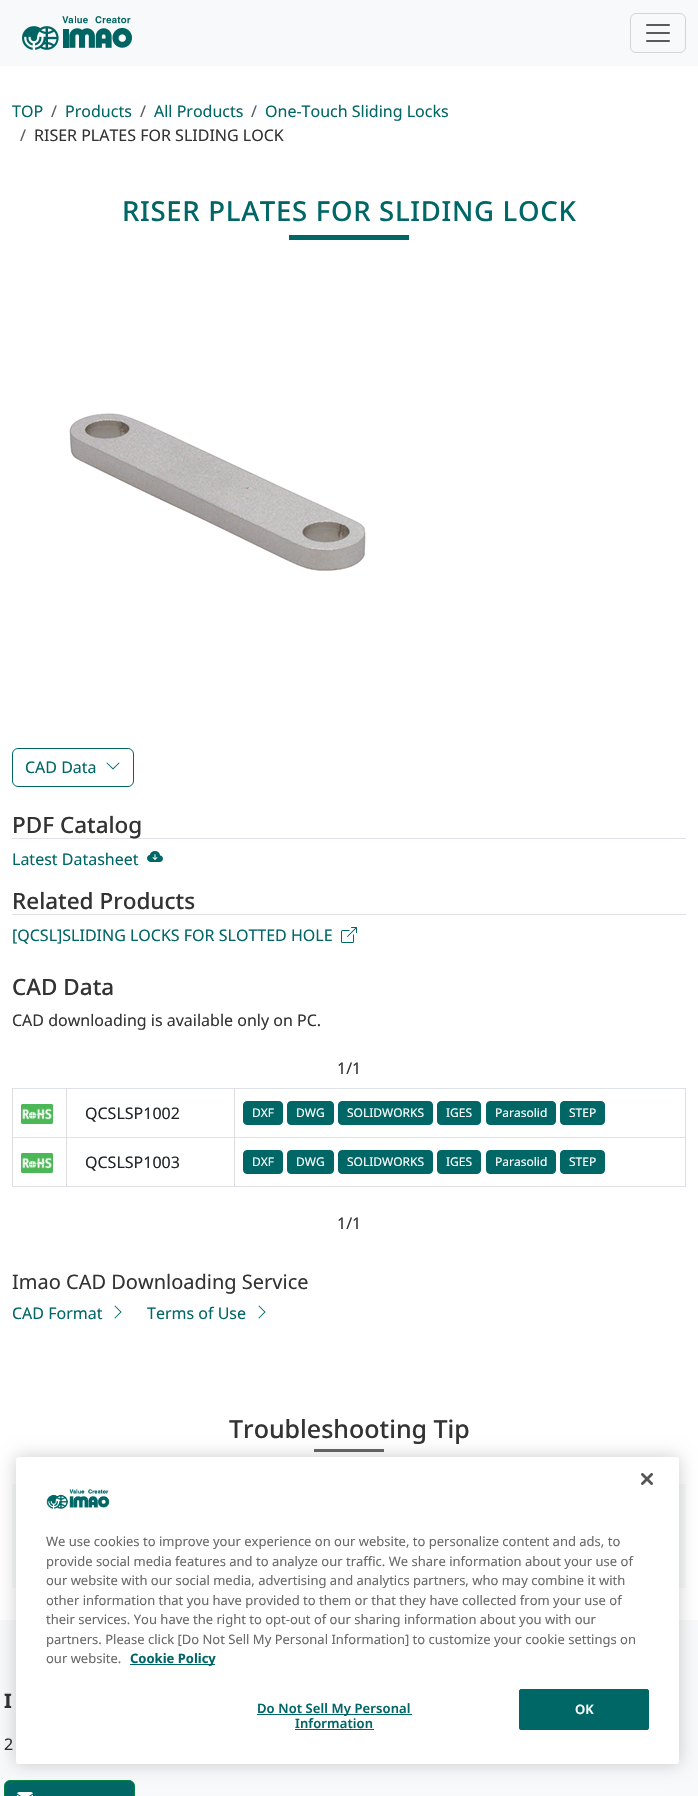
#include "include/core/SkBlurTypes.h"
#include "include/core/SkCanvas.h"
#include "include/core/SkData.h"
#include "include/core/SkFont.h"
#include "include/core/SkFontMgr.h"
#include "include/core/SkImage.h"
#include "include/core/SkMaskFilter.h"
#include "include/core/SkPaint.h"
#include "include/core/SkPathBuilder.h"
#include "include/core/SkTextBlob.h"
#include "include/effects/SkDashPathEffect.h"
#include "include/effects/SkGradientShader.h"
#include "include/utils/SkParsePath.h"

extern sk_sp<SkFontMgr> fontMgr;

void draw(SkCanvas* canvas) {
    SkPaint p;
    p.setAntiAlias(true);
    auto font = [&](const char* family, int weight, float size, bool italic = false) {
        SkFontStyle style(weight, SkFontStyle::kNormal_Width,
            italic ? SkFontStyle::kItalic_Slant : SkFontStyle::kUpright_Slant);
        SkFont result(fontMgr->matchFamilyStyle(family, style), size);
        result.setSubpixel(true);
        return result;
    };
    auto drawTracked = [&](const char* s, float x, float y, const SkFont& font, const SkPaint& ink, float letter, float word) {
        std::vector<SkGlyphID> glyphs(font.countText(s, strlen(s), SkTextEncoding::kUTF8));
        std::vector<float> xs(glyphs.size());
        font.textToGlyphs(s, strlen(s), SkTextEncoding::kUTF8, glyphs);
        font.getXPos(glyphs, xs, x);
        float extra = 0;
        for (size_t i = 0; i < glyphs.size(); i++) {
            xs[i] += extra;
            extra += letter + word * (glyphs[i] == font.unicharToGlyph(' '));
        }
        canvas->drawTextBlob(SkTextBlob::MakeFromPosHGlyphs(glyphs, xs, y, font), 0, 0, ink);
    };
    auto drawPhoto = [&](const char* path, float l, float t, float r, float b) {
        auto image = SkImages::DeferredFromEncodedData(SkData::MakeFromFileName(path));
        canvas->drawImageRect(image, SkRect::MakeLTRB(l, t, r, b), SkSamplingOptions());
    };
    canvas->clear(0xFFFFFFFF);
    p.setColor(0xFFF8F9FA);
    canvas->drawRect(SkRect::MakeLTRB(0, 0, 698, 66), p);
    drawPhoto("media/1.png", 22, 16, 132, 50);
    p.setStyle(SkPaint::kStroke_Style);
    p.setStrokeWidth(1);
    p.setColor(0xFFD3D4D5);
    canvas->drawRoundRect(SkRect::MakeLTRB(630.5f, 13.5f, 685.5f, 52.5f), 5.5f, 5.5f, p);
    drawPhoto("media/2.png", 646, 24, 670, 42);
    auto font1 = font("Noto Sans", 400, 16);
    p.setStyle(SkPaint::kFill_Style);
    p.setColor(0xFF006666);
    canvas->drawString("TOP", 12, 117, font1, p);
    p.setColor(0xFF595C5F);
    canvas->drawString("/", 51, 117, font1, p);
    p.setColor(0xFF006666);
    canvas->drawString("Products", 65, 117, font1, p);
    p.setColor(0xFF595C5F);
    canvas->drawString("/", 140, 117, font1, p);
    p.setColor(0xFF006666);
    canvas->drawString("All Products", 154, 117, font1, p);
    p.setColor(0xFF595C5F);
    canvas->drawString("/", 251, 117, font1, p);
    p.setColor(0xFF006666);
    canvas->drawString("One-Touch Sliding Locks", 265, 117, font1, p);
    p.setColor(0xFF595C5F);
    canvas->drawString("/", 20, 141, font1, p);
    p.setColor(0xFF333333);
    canvas->drawString("RISER PLATES FOR SLIDING LOCK", 34, 141, font1, p);
    auto font2 = font("Noto Sans", 500, 27.5f);
    p.setColor(0xFF006666);
    drawTracked("RISER PLATES FOR SLIDING LOCK", 122, 221, font2, p, 0.7f, 0);
    canvas->drawRect(SkRect::MakeLTRB(289, 235, 409, 240), p);
    drawPhoto("media/3.png", 69, 413, 366, 571);
    p.setStyle(SkPaint::kStroke_Style);
    canvas->drawRoundRect(SkRect::MakeLTRB(12.5f, 748.5f, 133.5f, 786.5f), 5.5f, 5.5f, p);
    p.setStyle(SkPaint::kFill_Style);
    canvas->drawString("CAD Data", 25, 773, font1, p);
    drawPhoto("media/4.png", 106, 762, 120, 770);
    p.setColor(0xFFDEE2E6);
    canvas->drawRect(SkRect::MakeLTRB(12, 838, 686, 839), p);
    auto font3 = font("Noto Sans", 500, 22.5f);
    p.setColor(0xFF333333);
    canvas->drawString("PDF Catalog", 12, 833, font3, p);
    p.setColor(0xFF006666);
    canvas->drawString("Latest Datasheet", 12, 865, font1, p);
    drawPhoto("media/5.png", 147, 851, 163, 862);
    p.setColor(0xFFDEE2E6);
    canvas->drawRect(SkRect::MakeLTRB(12, 914, 686, 915), p);
    p.setColor(0xFF333333);
    canvas->drawString("Related Products", 12, 909, font3, p);
    p.setColor(0xFF006666);
    canvas->drawString("[QCSL]SLIDING LOCKS FOR SLOTTED HOLE", 12, 941, font1, p);
    drawPhoto("media/6.png", 341, 927, 357, 943);
    p.setColor(0xFF333333);
    canvas->drawString("CAD Data", 12, 995, font3, p);
    canvas->drawString("CAD downloading is available only on PC.", 12, 1026, font1, p);
    canvas->drawString("1/1", 337, 1074, font1, p);
    p.setColor(0xFFDEE2E6);
    canvas->drawRect(SkRect::MakeLTRB(12, 1088, 686, 1089), p);
    drawPhoto("media/7.png", 21, 1104, 53, 1124);
    p.setColor(0xFF212529);
    canvas->drawString("QCSLSP1002", 85, 1119, font1, p);
    p.setColor(0xFF006666);
    canvas->drawRoundRect(SkRect::MakeLTRB(243.5f, 1101.5f, 282.5f, 1124.5f), 3.5f, 3.5f, p);
    p.setStyle(SkPaint::kStroke_Style);
    canvas->drawRoundRect(SkRect::MakeLTRB(243.5f, 1101.5f, 282.5f, 1124.5f), 3.5f, 3.5f, p);
    auto font4 = font("Noto Sans", 400, 12);
    p.setStyle(SkPaint::kFill_Style);
    p.setColor(0xFFFFFFFF);
    canvas->drawString("DXF", 252, 1117, font4, p);
    p.setColor(0xFF006666);
    canvas->drawRoundRect(SkRect::MakeLTRB(287.5f, 1101.5f, 333.5f, 1124.5f), 3.5f, 3.5f, p);
    p.setStyle(SkPaint::kStroke_Style);
    canvas->drawRoundRect(SkRect::MakeLTRB(287.5f, 1101.5f, 333.5f, 1124.5f), 3.5f, 3.5f, p);
    p.setStyle(SkPaint::kFill_Style);
    p.setColor(0xFFFFFFFF);
    canvas->drawString("DWG", 296, 1117, font4, p);
    p.setColor(0xFF006666);
    canvas->drawRoundRect(SkRect::MakeLTRB(338.5f, 1101.5f, 432.5f, 1124.5f), 3.5f, 3.5f, p);
    p.setStyle(SkPaint::kStroke_Style);
    canvas->drawRoundRect(SkRect::MakeLTRB(338.5f, 1101.5f, 432.5f, 1124.5f), 3.5f, 3.5f, p);
    p.setStyle(SkPaint::kFill_Style);
    p.setColor(0xFFFFFFFF);
    canvas->drawString("SOLIDWORKS", 347, 1117, font4, p);
    p.setColor(0xFF006666);
    canvas->drawRoundRect(SkRect::MakeLTRB(437.5f, 1101.5f, 480.5f, 1124.5f), 3.5f, 3.5f, p);
    p.setStyle(SkPaint::kStroke_Style);
    canvas->drawRoundRect(SkRect::MakeLTRB(437.5f, 1101.5f, 480.5f, 1124.5f), 3.5f, 3.5f, p);
    p.setStyle(SkPaint::kFill_Style);
    p.setColor(0xFFFFFFFF);
    canvas->drawString("IGES", 446, 1117, font4, p);
    p.setColor(0xFF006666);
    canvas->drawRoundRect(SkRect::MakeLTRB(486.5f, 1101.5f, 555.5f, 1124.5f), 3.5f, 3.5f, p);
    p.setStyle(SkPaint::kStroke_Style);
    canvas->drawRoundRect(SkRect::MakeLTRB(486.5f, 1101.5f, 555.5f, 1124.5f), 3.5f, 3.5f, p);
    p.setStyle(SkPaint::kFill_Style);
    p.setColor(0xFFFFFFFF);
    canvas->drawString("Parasolid", 495, 1117, font4, p);
    p.setColor(0xFF006666);
    canvas->drawRoundRect(SkRect::MakeLTRB(560.5f, 1101.5f, 604.5f, 1124.5f), 3.5f, 3.5f, p);
    p.setStyle(SkPaint::kStroke_Style);
    canvas->drawRoundRect(SkRect::MakeLTRB(560.5f, 1101.5f, 604.5f, 1124.5f), 3.5f, 3.5f, p);
    p.setStyle(SkPaint::kFill_Style);
    p.setColor(0xFFFFFFFF);
    canvas->drawString("STEP", 569, 1117, font4, p);
    {
        const struct { float l, t, r, b; SkColor color; } items[] = {
            {12, 1137, 686, 1138, 0xFFDEE2E6},
            {12, 1186, 686, 1187, 0xFFDEE2E6},
            {12, 1088, 13, 1187, 0xFFDDDDDD},
        };
        for (auto [l, t, r, b, color] : items) {
            p.setColor(color);
            canvas->drawRect(SkRect::MakeLTRB(l, t, r, b), p);
        }
    }
    drawPhoto("media/7.png", 21, 1153, 53, 1173);
    canvas->drawRect(SkRect::MakeLTRB(66, 1088, 67, 1187), p);
    p.setColor(0xFF212529);
    canvas->drawString("QCSLSP1003", 85, 1168, font1, p);
    p.setColor(0xFFDDDDDD);
    canvas->drawRect(SkRect::MakeLTRB(685, 1088, 686, 1187), p);
    canvas->drawRect(SkRect::MakeLTRB(234, 1088, 235, 1187), p);
    p.setColor(0xFF006666);
    canvas->drawRoundRect(SkRect::MakeLTRB(243.5f, 1150.5f, 282.5f, 1173.5f), 3.5f, 3.5f, p);
    p.setStyle(SkPaint::kStroke_Style);
    canvas->drawRoundRect(SkRect::MakeLTRB(243.5f, 1150.5f, 282.5f, 1173.5f), 3.5f, 3.5f, p);
    p.setStyle(SkPaint::kFill_Style);
    p.setColor(0xFFFFFFFF);
    canvas->drawString("DXF", 252, 1166, font4, p);
    p.setColor(0xFF006666);
    canvas->drawRoundRect(SkRect::MakeLTRB(287.5f, 1150.5f, 333.5f, 1173.5f), 3.5f, 3.5f, p);
    p.setStyle(SkPaint::kStroke_Style);
    canvas->drawRoundRect(SkRect::MakeLTRB(287.5f, 1150.5f, 333.5f, 1173.5f), 3.5f, 3.5f, p);
    p.setStyle(SkPaint::kFill_Style);
    p.setColor(0xFFFFFFFF);
    canvas->drawString("DWG", 296, 1166, font4, p);
    p.setColor(0xFF006666);
    canvas->drawRoundRect(SkRect::MakeLTRB(338.5f, 1150.5f, 432.5f, 1173.5f), 3.5f, 3.5f, p);
    p.setStyle(SkPaint::kStroke_Style);
    canvas->drawRoundRect(SkRect::MakeLTRB(338.5f, 1150.5f, 432.5f, 1173.5f), 3.5f, 3.5f, p);
    p.setStyle(SkPaint::kFill_Style);
    p.setColor(0xFFFFFFFF);
    canvas->drawString("SOLIDWORKS", 347, 1166, font4, p);
    p.setColor(0xFF006666);
    canvas->drawRoundRect(SkRect::MakeLTRB(437.5f, 1150.5f, 480.5f, 1173.5f), 3.5f, 3.5f, p);
    p.setStyle(SkPaint::kStroke_Style);
    canvas->drawRoundRect(SkRect::MakeLTRB(437.5f, 1150.5f, 480.5f, 1173.5f), 3.5f, 3.5f, p);
    p.setStyle(SkPaint::kFill_Style);
    p.setColor(0xFFFFFFFF);
    canvas->drawString("IGES", 446, 1166, font4, p);
    p.setColor(0xFF006666);
    canvas->drawRoundRect(SkRect::MakeLTRB(486.5f, 1150.5f, 555.5f, 1173.5f), 3.5f, 3.5f, p);
    p.setStyle(SkPaint::kStroke_Style);
    canvas->drawRoundRect(SkRect::MakeLTRB(486.5f, 1150.5f, 555.5f, 1173.5f), 3.5f, 3.5f, p);
    p.setStyle(SkPaint::kFill_Style);
    p.setColor(0xFFFFFFFF);
    canvas->drawString("Parasolid", 495, 1166, font4, p);
    p.setColor(0xFF006666);
    canvas->drawRoundRect(SkRect::MakeLTRB(560.5f, 1150.5f, 604.5f, 1173.5f), 3.5f, 3.5f, p);
    p.setStyle(SkPaint::kStroke_Style);
    canvas->drawRoundRect(SkRect::MakeLTRB(560.5f, 1150.5f, 604.5f, 1173.5f), 3.5f, 3.5f, p);
    p.setStyle(SkPaint::kFill_Style);
    p.setColor(0xFFFFFFFF);
    canvas->drawString("STEP", 569, 1166, font4, p);
    p.setColor(0xFF333333);
    canvas->drawString("1/1", 337, 1229, font1, p);
    auto font5 = font("Noto Sans", 400, 20);
    canvas->drawString("Imao CAD Downloading Service", 12, 1289, font5, p);
    p.setColor(0xFF006666);
    canvas->drawString("CAD Format", 12, 1319, font1, p);
    drawPhoto("media/8.png", 114, 1305, 122, 1319);
    canvas->drawString("Terms of Use", 147, 1319, font1, p);
    drawPhoto("media/8.png", 258, 1305, 266, 1319);
    auto font6 = font("Noto Sans", 500, 25);
    p.setColor(0xFF333333);
    canvas->drawString("Troubleshooting Tip", 229, 1438, font6, p);
    {
        const struct { float l, t, r, b; SkColor color; } items[] = {
            {314, 1449, 384, 1452, 0xFF666666},
            {12, 1484, 686, 1588, 0xFFF8F9FA},
            {0, 1620, 698, 1796, 0xFFF8F9FA},
        };
        for (auto [l, t, r, b, color] : items) {
            p.setColor(color);
            canvas->drawRect(SkRect::MakeLTRB(l, t, r, b), p);
        }
    }
    auto font7 = font("Noto Sans", 700, 20);
    p.setColor(0xFF333333);
    canvas->drawString("I", 4, 1708, font7, p);
    canvas->drawString("2", 4, 1750, font1, p);
    p.setColor(0xFF006666);
    canvas->drawRoundRect(SkRect::MakeLTRB(4.5f, 1780.5f, 134.5f, 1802.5f), 5.5f, 5.5f, p);
    p.setStyle(SkPaint::kStroke_Style);
    p.setColor(0xFF028343);
    canvas->drawRoundRect(SkRect::MakeLTRB(4.5f, 1780.5f, 134.5f, 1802.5f), 5.5f, 5.5f, p);
    drawPhoto("media/9.png", 17, 1792, 33, 1796);
    p.setStyle(SkPaint::kFill_Style);
    p.setColor(0x33000000);
    p.setMaskFilter(SkMaskFilter::MakeBlur(kNormal_SkBlurStyle, 9));
    canvas->drawRoundRect(SkRect::MakeLTRB(16, 1457, 679, 1764), 2.5f, 2.5f, p);
    p.setMaskFilter(nullptr);
    p.setColor(0xFFFFFFFF);
    canvas->drawRoundRect(SkRect::MakeLTRB(16, 1457, 679, 1764), 2.5f, 2.5f, p);
    drawPhoto("media/10.png", 641, 1473, 653, 1485);
    auto font8 = font("Noto Sans", 400, 13);
    p.setColor(0xFF696969);
    {
        const struct { const char* s; float x, y; } items[] = {
            {"We use cookies to improve your experience on our website, to personalize content and ads, to", 46, 1546},
            {"provide social media features and to analyze our traffic. We share information about your use of", 46, 1566},
            {"our website with our social media, advertising and analytics partners, who may combine it with", 46, 1585},
            {"other information that you have provided to them or that they have collected from your use of", 46, 1605},
            {"their services. You have the right to opt-out of our sharing information about you with our", 46, 1624},
            {"partners. Please click [Do Not Sell My Personal Information] to customize your cookie settings on", 46, 1644},
            {"our website.", 46, 1663},
        };
        for (auto [s, x, y] : items) {
            canvas->drawString(s, x, y, font8, p);
        }
    }
    p.setColor(0xFF006666);
    canvas->drawRect(SkRect::MakeLTRB(130, 1664, 215, 1665), p);
    auto font9 = font("Noto Sans", 700, 13);
    canvas->drawString("Cookie Policy", 130, 1663, font9, p);
    drawPhoto("media/11.png", 46, 1489, 110, 1509);
    canvas->drawRect(SkRect::MakeLTRB(257, 1714, 412, 1715), p);
    auto font10 = font("Noto Sans", 600, 13);
    drawTracked("Do Not Sell My Personal", 257, 1713, font10, p, 0.1f, 0);
    drawTracked("Information", 295, 1728, font10, p, 0.1f, 0);
    canvas->drawRect(SkRect::MakeLTRB(295, 1729, 374, 1730), p);
    canvas->drawRoundRect(SkRect::MakeLTRB(519.5f, 1689.5f, 648.5f, 1729.5f), 1.5f, 1.5f, p);
    p.setStyle(SkPaint::kStroke_Style);
    canvas->drawRoundRect(SkRect::MakeLTRB(519.5f, 1689.5f, 648.5f, 1729.5f), 1.5f, 1.5f, p);
    p.setStyle(SkPaint::kFill_Style);
    p.setColor(0xFFFFFFFF);
    drawTracked("OK", 575, 1714, font10, p, 0.1f, 0);
}
